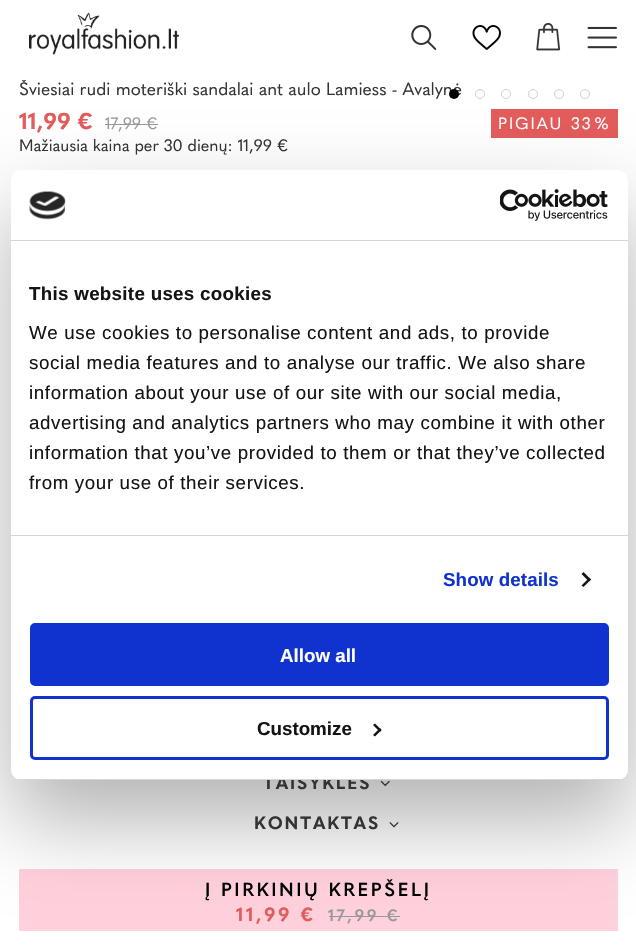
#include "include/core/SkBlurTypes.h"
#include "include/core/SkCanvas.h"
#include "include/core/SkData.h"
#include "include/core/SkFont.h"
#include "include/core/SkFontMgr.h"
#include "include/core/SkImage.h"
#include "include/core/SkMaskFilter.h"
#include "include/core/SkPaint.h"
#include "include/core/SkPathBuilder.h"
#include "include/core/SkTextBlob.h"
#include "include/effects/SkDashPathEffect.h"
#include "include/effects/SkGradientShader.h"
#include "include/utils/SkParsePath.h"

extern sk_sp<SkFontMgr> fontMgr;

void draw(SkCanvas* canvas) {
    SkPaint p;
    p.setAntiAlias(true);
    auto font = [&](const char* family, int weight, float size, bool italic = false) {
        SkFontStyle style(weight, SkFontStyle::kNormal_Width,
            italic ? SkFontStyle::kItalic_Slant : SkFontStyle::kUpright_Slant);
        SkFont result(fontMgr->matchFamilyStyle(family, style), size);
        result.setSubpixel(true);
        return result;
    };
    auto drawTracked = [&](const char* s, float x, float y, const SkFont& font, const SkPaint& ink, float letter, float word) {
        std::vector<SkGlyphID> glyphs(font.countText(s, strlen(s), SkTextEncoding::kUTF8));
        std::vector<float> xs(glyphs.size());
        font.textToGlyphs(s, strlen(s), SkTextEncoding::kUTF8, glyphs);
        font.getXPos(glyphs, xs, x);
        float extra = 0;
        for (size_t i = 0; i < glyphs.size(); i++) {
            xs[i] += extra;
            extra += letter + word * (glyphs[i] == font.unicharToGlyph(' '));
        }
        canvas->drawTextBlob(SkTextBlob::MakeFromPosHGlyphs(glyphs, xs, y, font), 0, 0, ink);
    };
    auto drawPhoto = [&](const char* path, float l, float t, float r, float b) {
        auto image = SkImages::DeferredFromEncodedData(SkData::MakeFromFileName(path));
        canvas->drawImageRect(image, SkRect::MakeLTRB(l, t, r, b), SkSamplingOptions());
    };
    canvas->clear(0xFFFFFFFF);
    drawPhoto("media/1.png", 29, 12, 179, 55);
    drawPhoto("media/2.png", 411, 25, 437, 50);
    drawPhoto("media/3.png", 472, 25, 501, 50);
    drawPhoto("media/4.png", 536, 22, 561, 51);
    drawPhoto("media/5.png", 587, 26, 617, 49);
    canvas->save();
    canvas->clipRect(SkRect::MakeLTRB(19, 80, 618, 103));
    auto font1 = font("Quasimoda", 400, 17.5f);
    p.setColor(0xFF333333);
    canvas->drawString("Šviesiai rudi moteriški sandalai ant aulo Lamiess - Avalynė", 19, 95, font1, p);
    canvas->restore();
    p.setColor(0xFF000000);
    canvas->drawCircle(454, 94, 5, p);
    p.setStyle(SkPaint::kStroke_Style);
    p.setStrokeWidth(1);
    p.setColor(0xFFD0D0D0);
    canvas->drawCircle(480, 94, 4.5f, p);
    canvas->drawCircle(506, 94, 4.5f, p);
    canvas->drawCircle(533, 94, 4.5f, p);
    canvas->drawCircle(559, 94, 4.5f, p);
    canvas->drawCircle(585, 94, 4.5f, p);
    auto font2 = font("Quasimoda", 700, 22.5f);
    p.setStyle(SkPaint::kFill_Style);
    p.setColor(0xFFE35C5C);
    canvas->drawString("11,99 €", 19, 129, font2, p);
    auto font3 = font("Quasimoda", 400, 16.25f);
    p.setColor(0xFF999999);
    canvas->drawString("17,99 €", 105, 129, font3, p);
    canvas->drawRect(SkRect::MakeLTRB(105, 124, 158, 125), p);
    p.setColor(0xFFE35C5C);
    canvas->drawRect(SkRect::MakeLTRB(491, 109, 618, 138), p);
    p.setColor(0xFFFFFFFF);
    {
        const struct { const char* s; float x, y; } items[] = {
            {"PIGIAU", 498, 129},
            {"33", 571, 129},
            {"%", 594, 129},
        };
        for (auto [s, x, y] : items) {
            drawTracked(s, x, y, font3, p, 1.9f, 0);
        }
    }
    p.setColor(0xFF333333);
    canvas->drawString("Mažiausia kaina per 30 dienų: 11,99 €", 19, 151, font3, p);
    p.setColor(0xFFFFD1DC);
    canvas->drawRect(SkRect::MakeLTRB(19, 869, 618, 931), p);
    auto font4 = font("Quasimoda", 600, 18.75f);
    p.setColor(0xFF000000);
    drawTracked("Į PIRKINIŲ KREPŠELĮ", 205, 896, font4, p, 2.6f, 0);
    auto font5 = font("Quasimoda", 700, 18.75f);
    p.setColor(0xFFE35C5C);
    drawTracked("11,99 €", 236, 921, font5, p, 2.6f, 0);
    auto font6 = font("Quasimoda", 600, 16.25f);
    p.setColor(0xFF999999);
    drawTracked("17,99 €", 328, 921, font6, p, 2.6f, 0);
    canvas->drawRect(SkRect::MakeLTRB(329, 916, 400, 917), p);
    drawPhoto("media/8.png", 380, 780, 390, 787);
    drawPhoto("media/9.png", 389, 822, 399, 828);
    p.setColor(0x4D000000);
    p.setMaskFilter(SkMaskFilter::MakeBlur(kNormal_SkBlurStyle, 42.5f));
    canvas->drawRoundRect(SkRect::MakeLTRB(11, 210, 628, 820), 10, 10, p);
    p.setMaskFilter(nullptr);
    auto font7 = font("Quasimoda", 700, 17.5f);
    p.setColor(0xFF333333);
    drawTracked("TAISYKLĖS", 263, 789, font7, p, 1.9f, 0);
    p.setColor(0xFFFFFFFF);
    canvas->drawRoundRect(SkRect::MakeLTRB(11, 170, 628, 780), 10, 10, p);
    p.setColor(0xFFD6D6D6);
    canvas->drawRect(SkRect::MakeLTRB(11, 240, 628, 241), p);
    drawPhoto("media/6.png", 29, 191, 66, 220);
    drawPhoto("media/7.png", 500, 189, 608, 221);
    canvas->drawRect(SkRect::MakeLTRB(11, 535, 628, 536), p);
    auto font8 = font("Liberation Sans", 700, 18.75f);
    p.setColor(0xFF141414);
    drawTracked("This website uses cookies", 29, 300, font8, p, 0.3f, 0);
    auto font9 = font("Liberation Sans", 400, 18.75f);
    {
        const struct { const char* s; float x, y; } items[] = {
            {"We use cookies to personalise content and ads, to provide", 29, 339},
            {"social media features and to analyse our traffic. We also share", 29, 369},
            {"information about your use of our site with our social media,", 29, 399},
            {"advertising and analytics partners who may combine it with other", 29, 429},
            {"information that you’ve provided to them or that they’ve collected", 29, 459},
            {"from your use of their services.", 29, 489},
        };
        for (auto [s, x, y] : items) {
            drawTracked(s, x, y, font9, p, 0.62f, 0);
        }
    }
    p.setColor(0xFF1032CF);
    drawTracked("Show details", 443, 586, font8, p, 0.1f, 0);
    p.setColor(0xFF141414);
    canvas->drawPath(SkPathBuilder().moveTo(583.5f, 572).lineTo(591, 579.5f).lineTo(589, 581.5f).lineTo(581.5f, 574).close().detach(), p);
    canvas->drawPath(SkPathBuilder().moveTo(589, 578).lineTo(591, 579.5f).lineTo(583.5f, 587).lineTo(581.5f, 585.5f).close().detach(), p);
    canvas->save();
    canvas->clipPath(SkPathBuilder().moveTo(21, 170).lineTo(618, 170).cubicTo(623.5f, 170, 628, 174.5f, 628, 180).lineTo(628, 770).cubicTo(628, 775.5f, 623.5f, 780, 618, 780).lineTo(21, 780).cubicTo(15.5f, 780, 11, 775.5f, 11, 770).lineTo(11, 180).cubicTo(11, 174.5f, 15.5f, 170, 21, 170).close().detach(), true);
    p.setColor(0xFFD6D6D6);
    canvas->drawRect(SkRect::MakeLTRB(11, 779, 628, 780), p);
    canvas->restore();
    p.setColor(0xFF1032CF);
    canvas->drawRoundRect(SkRect::MakeLTRB(31.5f, 624.5f, 607.5f, 684.5f), 3.5f, 3.5f, p);
    p.setStyle(SkPaint::kStroke_Style);
    p.setStrokeWidth(3);
    canvas->drawRoundRect(SkRect::MakeLTRB(31.5f, 624.5f, 607.5f, 684.5f), 3.5f, 3.5f, p);
    p.setStyle(SkPaint::kFill_Style);
    p.setColor(0xFFFFFFFF);
    canvas->drawString("Allow all", 280, 662, font8, p);
    p.setStyle(SkPaint::kStroke_Style);
    p.setColor(0xFF1032CF);
    canvas->drawRoundRect(SkRect::MakeLTRB(31.5f, 697.5f, 607.5f, 758.5f), 3.5f, 3.5f, p);
    p.setStyle(SkPaint::kFill_Style);
    p.setColor(0xFF141414);
    canvas->drawString("Customize", 257, 735, font8, p);
    canvas->drawPath(SkPathBuilder().moveTo(375, 723.5f).lineTo(381.5f, 730).lineTo(380, 732).lineTo(373, 725).close().detach(), p);
    canvas->drawPath(SkPathBuilder().moveTo(380, 728).lineTo(381.5f, 730).lineTo(375, 736.5f).lineTo(373, 735).close().detach(), p);
    p.setColor(0xFF333333);
    drawTracked("KONTAKTAS", 254, 829, font7, p, 1.9f, 0);
}
